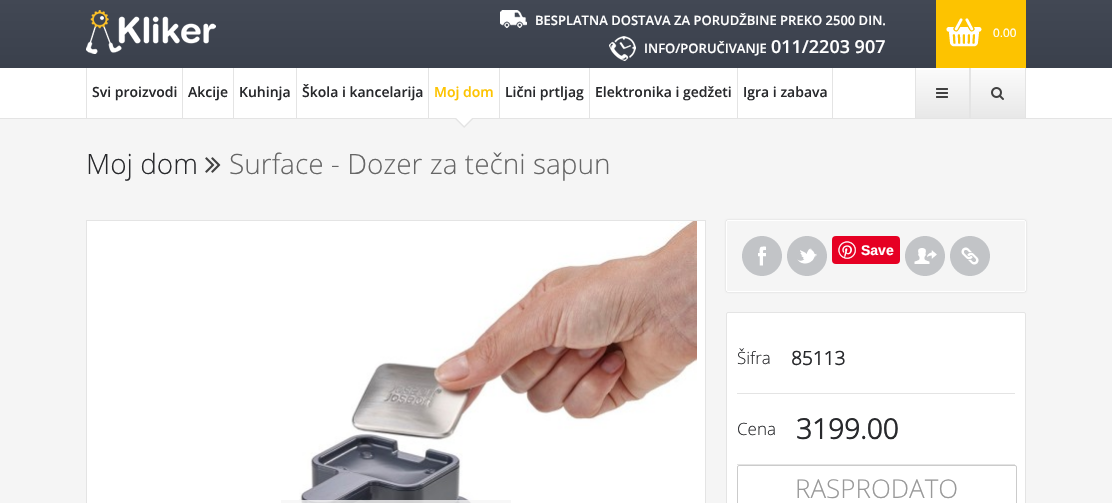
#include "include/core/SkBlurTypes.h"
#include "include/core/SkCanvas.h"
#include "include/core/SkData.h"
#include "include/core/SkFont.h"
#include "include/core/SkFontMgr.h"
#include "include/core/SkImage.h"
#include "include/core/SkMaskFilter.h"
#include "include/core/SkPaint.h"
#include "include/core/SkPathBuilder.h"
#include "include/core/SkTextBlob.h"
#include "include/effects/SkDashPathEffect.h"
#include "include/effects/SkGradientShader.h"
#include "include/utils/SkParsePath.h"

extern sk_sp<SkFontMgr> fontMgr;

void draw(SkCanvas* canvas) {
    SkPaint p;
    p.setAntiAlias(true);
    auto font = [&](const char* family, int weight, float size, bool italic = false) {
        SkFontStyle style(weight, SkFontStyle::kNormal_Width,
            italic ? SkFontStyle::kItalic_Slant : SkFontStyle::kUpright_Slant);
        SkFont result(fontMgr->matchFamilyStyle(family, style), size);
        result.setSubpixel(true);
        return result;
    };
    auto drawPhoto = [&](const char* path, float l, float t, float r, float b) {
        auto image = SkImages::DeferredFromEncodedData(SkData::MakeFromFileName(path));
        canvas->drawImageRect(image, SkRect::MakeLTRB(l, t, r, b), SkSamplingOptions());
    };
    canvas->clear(0xFFF5F5F5);
    {
        const SkColor colors[] = {0xFF424854, 0xFF3A404C};
        const float stops[] = {0, 1};
        const SkPoint ends[] = {{556, 0}, {556, 68}};
        p.setShader(SkGradientShader::MakeLinear(ends, colors, stops, 2, SkTileMode::kClamp));
        p.setAlpha(255);
    }
    canvas->drawRect(SkRect::MakeLTRB(0, 0, 1112, 68), p);
    drawPhoto("media/1.png", 86, 10, 216, 54);
    drawPhoto("media/2.png", 500, 10, 527, 28);
    auto font1 = font("Open Sans", 600, 13);
    p.setShader(nullptr);
    p.setColor(0xFFFFFFFF);
    canvas->drawString("BESPLATNA DOSTAVA ZA PORUDŽBINE PREKO 2500 DIN.", 535, 25, font1, p);
    drawPhoto("media/3.png", 609, 36, 636, 61);
    canvas->drawString("INFO/PORUČIVANJE", 644, 53, font1, p);
    auto font2 = font("Open Sans", 600, 18);
    canvas->drawString("011/2203 907", 771, 53, font2, p);
    p.setColor(0xFFFDC300);
    canvas->drawRect(SkRect::MakeLTRB(936, 0, 1026, 68), p);
    drawPhoto("media/4.png", 946, 18, 982, 47);
    auto font3 = font("Liberation Sans", 400, 12);
    p.setColor(0xFFFFFFFF);
    canvas->drawString("0.00", 993, 37, font3, p);
    {
        const struct { float l, t, r, b; SkColor color; } items[] = {
            {0, 68, 1112, 118, 0xFFFFFFFF},
            {0, 118, 1112, 119, 0xFFE4E4E4},
            {182, 68, 183, 118, 0xFFE4E4E4},
            {86, 68, 87, 118, 0xFFE4E4E4},
        };
        for (auto [l, t, r, b, color] : items) {
            p.setColor(color);
            canvas->drawRect(SkRect::MakeLTRB(l, t, r, b), p);
        }
    }
    auto font4 = font("Open Sans", 600, 14);
    p.setColor(0xFF28292C);
    canvas->drawString("Svi proizvodi", 92, 97, font4, p);
    p.setColor(0xFFE4E4E4);
    canvas->drawRect(SkRect::MakeLTRB(233, 68, 234, 118), p);
    p.setColor(0xFF28292C);
    canvas->drawString("Akcije", 188, 97, font4, p);
    p.setColor(0xFFE4E4E4);
    canvas->drawRect(SkRect::MakeLTRB(296, 68, 297, 118), p);
    p.setColor(0xFF28292C);
    canvas->drawString("Kuhinja", 239, 97, font4, p);
    p.setColor(0xFFE4E4E4);
    canvas->drawRect(SkRect::MakeLTRB(428, 68, 429, 118), p);
    p.setColor(0xFF28292C);
    canvas->drawString("Škola i kancelarija", 302, 97, font4, p);
    p.setColor(0xFFE4E4E4);
    canvas->drawRect(SkRect::MakeLTRB(499, 68, 500, 118), p);
    p.setColor(0xFFFDC300);
    canvas->drawString("Moj dom", 434, 97, font4, p);
    drawPhoto("media/5.png", 455, 118, 473, 128);
    p.setColor(0xFFE4E4E4);
    canvas->drawRect(SkRect::MakeLTRB(589, 68, 590, 118), p);
    p.setColor(0xFF28292C);
    canvas->drawString("Lični prtljag", 505, 97, font4, p);
    p.setColor(0xFFE4E4E4);
    canvas->drawRect(SkRect::MakeLTRB(737, 68, 738, 118), p);
    p.setColor(0xFF28292C);
    canvas->drawString("Elektronika i gedžeti", 595, 97, font4, p);
    p.setColor(0xFFE4E4E4);
    canvas->drawRect(SkRect::MakeLTRB(832, 68, 833, 118), p);
    p.setColor(0xFF28292C);
    canvas->drawString("Igra i zabava", 743, 97, font4, p);
    drawPhoto("media/6.png", 916, 70, 969, 118);
    p.setColor(0xFFE4E4E4);
    canvas->drawRect(SkRect::MakeLTRB(915, 68, 916, 118), p);
    drawPhoto("media/7.png", 936, 88, 948, 98);
    drawPhoto("media/8.png", 971, 70, 1025, 118);
    canvas->drawRect(SkRect::MakeLTRB(1025, 68, 1026, 118), p);
    canvas->drawRect(SkRect::MakeLTRB(969, 68, 971, 118), p);
    drawPhoto("media/9.png", 991, 87, 1004, 100);
    auto font5 = font("Open Sans", 300, 28);
    p.setColor(0xFF28292C);
    canvas->drawString("Moj dom", 86, 174, font5, p);
    drawPhoto("media/10.png", 205, 157, 221, 173);
    p.setColor(0xFF666666);
    canvas->drawString("Surface - Dozer za tečni sapun", 229, 174, font5, p);
    p.setColor(0xFFFFFFFF);
    canvas->drawRect(SkRect::MakeLTRB(86.5f, 220.5f, 705.5f, 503.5f), p);
    p.setStyle(SkPaint::kStroke_Style);
    p.setStrokeWidth(1);
    p.setColor(0xFFE4E4E4);
    canvas->drawRect(SkRect::MakeLTRB(86.5f, 220.5f, 705.5f, 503.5f), p);
    drawPhoto("media/11.png", 299, 221, 697, 503);
    p.setStyle(SkPaint::kFill_Style);
    p.setColor(0xCCF5F5F5);
    canvas->drawRect(SkRect::MakeLTRB(281, 500, 511, 503), p);
    p.setColor(0xFFCBCBCB);
    p.setMaskFilter(SkMaskFilter::MakeBlur(kNormal_SkBlurStyle, 1));
    canvas->drawRoundRect(SkRect::MakeLTRB(726, 220, 1026, 292), 2, 2, p);
    p.setMaskFilter(nullptr);
    p.setColor(0xFFF5F5F5);
    canvas->drawRoundRect(SkRect::MakeLTRB(726.5f, 220.5f, 1025.5f, 291.5f), 1.5f, 1.5f, p);
    p.setStyle(SkPaint::kStroke_Style);
    p.setColor(0xFFFFFFFF);
    canvas->drawRoundRect(SkRect::MakeLTRB(726.5f, 220.5f, 1025.5f, 291.5f), 1.5f, 1.5f, p);
    drawPhoto("media/12.png", 742, 236, 782, 276);
    drawPhoto("media/13.png", 787, 236, 827, 276);
    p.setStyle(SkPaint::kFill_Style);
    p.setColor(0xFFE60023);
    canvas->drawRoundRect(SkRect::MakeLTRB(832, 236, 900, 264), 4, 4, p);
    drawPhoto("media/14.png", 838, 241, 856, 259);
    auto font6 = font("Liberation Sans", 700, 14);
    p.setColor(0xFFFFFFFF);
    canvas->drawString("Save", 861, 255, font6, p);
    drawPhoto("media/15.png", 905, 236, 945, 276);
    drawPhoto("media/16.png", 950, 236, 990, 276);
    canvas->drawRoundRect(SkRect::MakeLTRB(726.5f, 312.5f, 1025.5f, 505.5f), 1.5f, 1.5f, p);
    p.setStyle(SkPaint::kStroke_Style);
    p.setColor(0xFFE4E4E4);
    canvas->drawRoundRect(SkRect::MakeLTRB(726.5f, 312.5f, 1025.5f, 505.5f), 1.5f, 1.5f, p);
    p.setStyle(SkPaint::kFill_Style);
    canvas->drawRect(SkRect::MakeLTRB(737, 393, 1015, 394), p);
    auto font7 = font("Open Sans", 300, 17);
    p.setColor(0xFF28292C);
    canvas->drawString("Šifra", 737, 364, font7, p);
    auto font8 = font("Open Sans", 700, 19);
    canvas->drawString("85113", 791, 365, font8, p);
    p.setColor(0xFFE4E4E4);
    canvas->drawRect(SkRect::MakeLTRB(737, 464, 1015, 465), p);
    p.setColor(0xFF28292C);
    canvas->drawString("Cena", 737, 435, font7, p);
    auto font9 = font("Open Sans", 700, 28);
    canvas->drawString("3199.00", 796, 439, font9, p);
    p.setStyle(SkPaint::kStroke_Style);
    p.setColor(0xFFCBCBCB);
    canvas->drawRoundRect(SkRect::MakeLTRB(737.5f, 465.5f, 1016.5f, 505.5f), 1.5f, 1.5f, p);
    auto font10 = font("Open Sans", 300, 26);
    p.setStyle(SkPaint::kFill_Style);
    p.setColor(0xFF999999);
    canvas->drawString("RASPRODATO", 795, 498, font10, p);
}
